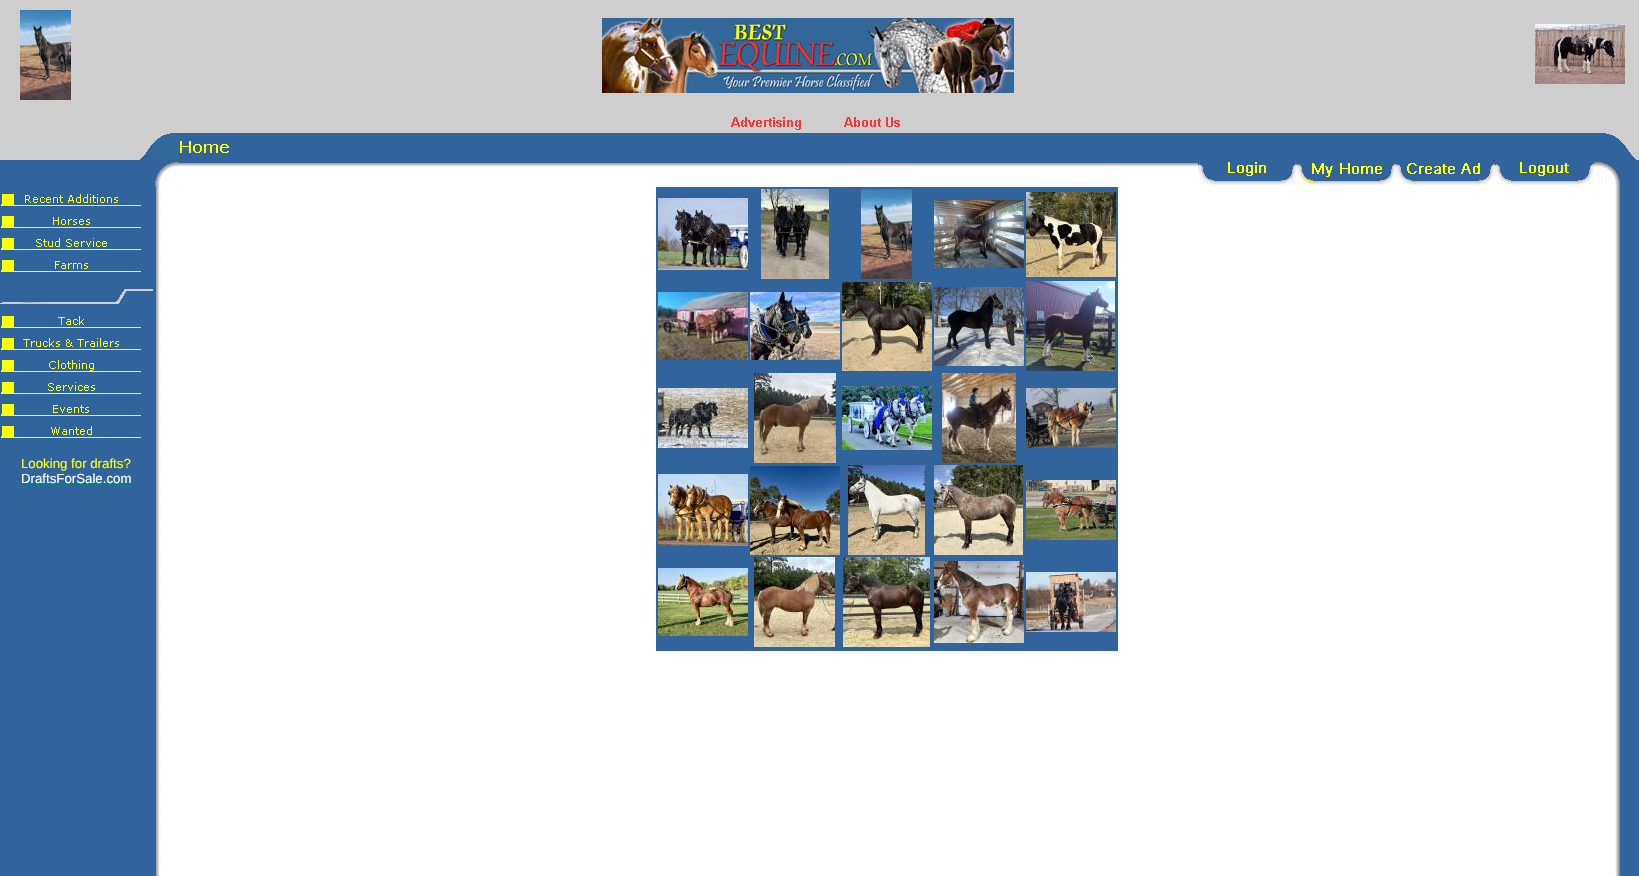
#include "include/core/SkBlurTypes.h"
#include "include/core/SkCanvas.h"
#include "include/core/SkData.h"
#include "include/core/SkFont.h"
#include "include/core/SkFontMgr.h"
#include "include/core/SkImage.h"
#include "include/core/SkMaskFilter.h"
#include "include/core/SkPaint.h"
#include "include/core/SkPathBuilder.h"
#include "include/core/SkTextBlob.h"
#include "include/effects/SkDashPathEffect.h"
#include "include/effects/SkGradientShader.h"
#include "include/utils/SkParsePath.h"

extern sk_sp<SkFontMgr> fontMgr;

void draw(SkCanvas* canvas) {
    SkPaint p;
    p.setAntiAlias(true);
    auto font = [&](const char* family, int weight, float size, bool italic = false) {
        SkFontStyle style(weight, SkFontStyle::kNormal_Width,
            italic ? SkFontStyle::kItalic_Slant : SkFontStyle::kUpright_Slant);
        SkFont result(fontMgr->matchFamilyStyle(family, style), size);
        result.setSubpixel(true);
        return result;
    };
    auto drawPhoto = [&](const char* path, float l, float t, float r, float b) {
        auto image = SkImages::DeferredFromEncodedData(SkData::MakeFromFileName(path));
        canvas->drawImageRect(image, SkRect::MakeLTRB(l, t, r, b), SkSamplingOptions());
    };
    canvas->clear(0xFFFFFFFF);
    p.setColor(0xFFCECECE);
    canvas->drawRect(SkRect::MakeLTRB(0, 0, 1639, 133), p);
    drawPhoto("media/1.png", 20, 10, 71, 100);
    drawPhoto("media/2.png", 602, 18, 1014, 93);
    drawPhoto("media/3.png", 1535, 24, 1625, 84);
    drawPhoto("media/4.png", 731, 117, 801, 130);
    drawPhoto("media/5.png", 844, 117, 900, 127);
    drawPhoto("media/6.png", 0, 133, 153, 160);
    drawPhoto("media/7.png", 153, 133, 179, 160);
    p.setColor(0xFF31639C);
    canvas->drawRect(SkRect::MakeLTRB(179, 133, 1594, 160), p);
    drawPhoto("media/8.png", 180, 141, 229, 153);
    drawPhoto("media/9.png", 1594, 133, 1639, 160);
    canvas->drawRect(SkRect::MakeLTRB(0, 160, 153, 876), p);
    drawPhoto("media/10.png", 153, 160, 179, 187);
    drawPhoto("media/11.png", 179, 160, 1594, 167);
    drawPhoto("media/12.png", 1198, 162, 1297, 185);
    drawPhoto("media/13.png", 1297, 163, 1396, 185);
    drawPhoto("media/14.png", 1396, 160, 1495, 185);
    drawPhoto("media/15.png", 1495, 162, 1594, 185);
    drawPhoto("media/16.png", 1594, 160, 1639, 187);
    drawPhoto("media/17.png", 1, 194, 141, 206);
    drawPhoto("media/18.png", 1, 216, 141, 228);
    drawPhoto("media/19.png", 1, 238, 141, 250);
    drawPhoto("media/20.png", 1, 260, 141, 272);
    drawPhoto("media/21.png", 0, 289, 153, 304);
    drawPhoto("media/22.png", 1, 316, 141, 328);
    drawPhoto("media/23.png", 1, 338, 141, 350);
    drawPhoto("media/24.png", 1, 360, 141, 372);
    drawPhoto("media/25.png", 1, 382, 141, 394);
    drawPhoto("media/26.png", 1, 404, 141, 416);
    drawPhoto("media/27.png", 1, 426, 141, 438);
    auto font1 = font("Liberation Sans", 400, 13.25f);
    p.setColor(0xFFFFFF00);
    canvas->drawString("Looking for drafts?", 21, 468, font1, p);
    p.setColor(0xFFFFFFFF);
    canvas->drawString("DraftsForSale.com", 21, 483, font1, p);
    p.setColor(0xFF008080);
    canvas->drawRect(SkRect::MakeLTRB(21, 484, 132, 485), p);
    drawPhoto("media/28.png", 153, 187, 161, 876);
    p.setColor(0xFF31639C);
    canvas->drawRect(SkRect::MakeLTRB(656, 187, 1118, 651), p);
    drawPhoto("media/29.png", 658, 198, 748, 270);
    drawPhoto("media/30.png", 761, 189, 829, 279);
    drawPhoto("media/1.png", 861, 189, 912, 279);
    drawPhoto("media/31.png", 934, 200, 1024, 268);
    drawPhoto("media/32.png", 1026, 192, 1116, 277);
    drawPhoto("media/33.png", 658, 292, 748, 360);
    drawPhoto("media/34.png", 750, 292, 840, 360);
    drawPhoto("media/35.png", 842, 282, 932, 371);
    drawPhoto("media/36.png", 934, 287, 1024, 366);
    drawPhoto("media/37.png", 1026, 281, 1115, 371);
    drawPhoto("media/38.png", 658, 388, 748, 448);
    drawPhoto("media/39.png", 754, 373, 836, 463);
    drawPhoto("media/40.png", 842, 386, 932, 450);
    drawPhoto("media/41.png", 942, 373, 1016, 463);
    drawPhoto("media/42.png", 1026, 388, 1116, 448);
    drawPhoto("media/43.png", 658, 474, 748, 546);
    drawPhoto("media/44.png", 750, 466, 840, 555);
    drawPhoto("media/45.png", 848, 465, 925, 555);
    drawPhoto("media/46.png", 934, 465, 1023, 555);
    drawPhoto("media/47.png", 1026, 480, 1116, 540);
    drawPhoto("media/48.png", 658, 568, 748, 636);
    drawPhoto("media/49.png", 754, 557, 835, 647);
    drawPhoto("media/50.png", 843, 557, 930, 647);
    drawPhoto("media/51.png", 934, 561, 1024, 643);
    drawPhoto("media/52.png", 1026, 572, 1116, 632);
    drawPhoto("media/53.png", 1615, 187, 1639, 876);
}
